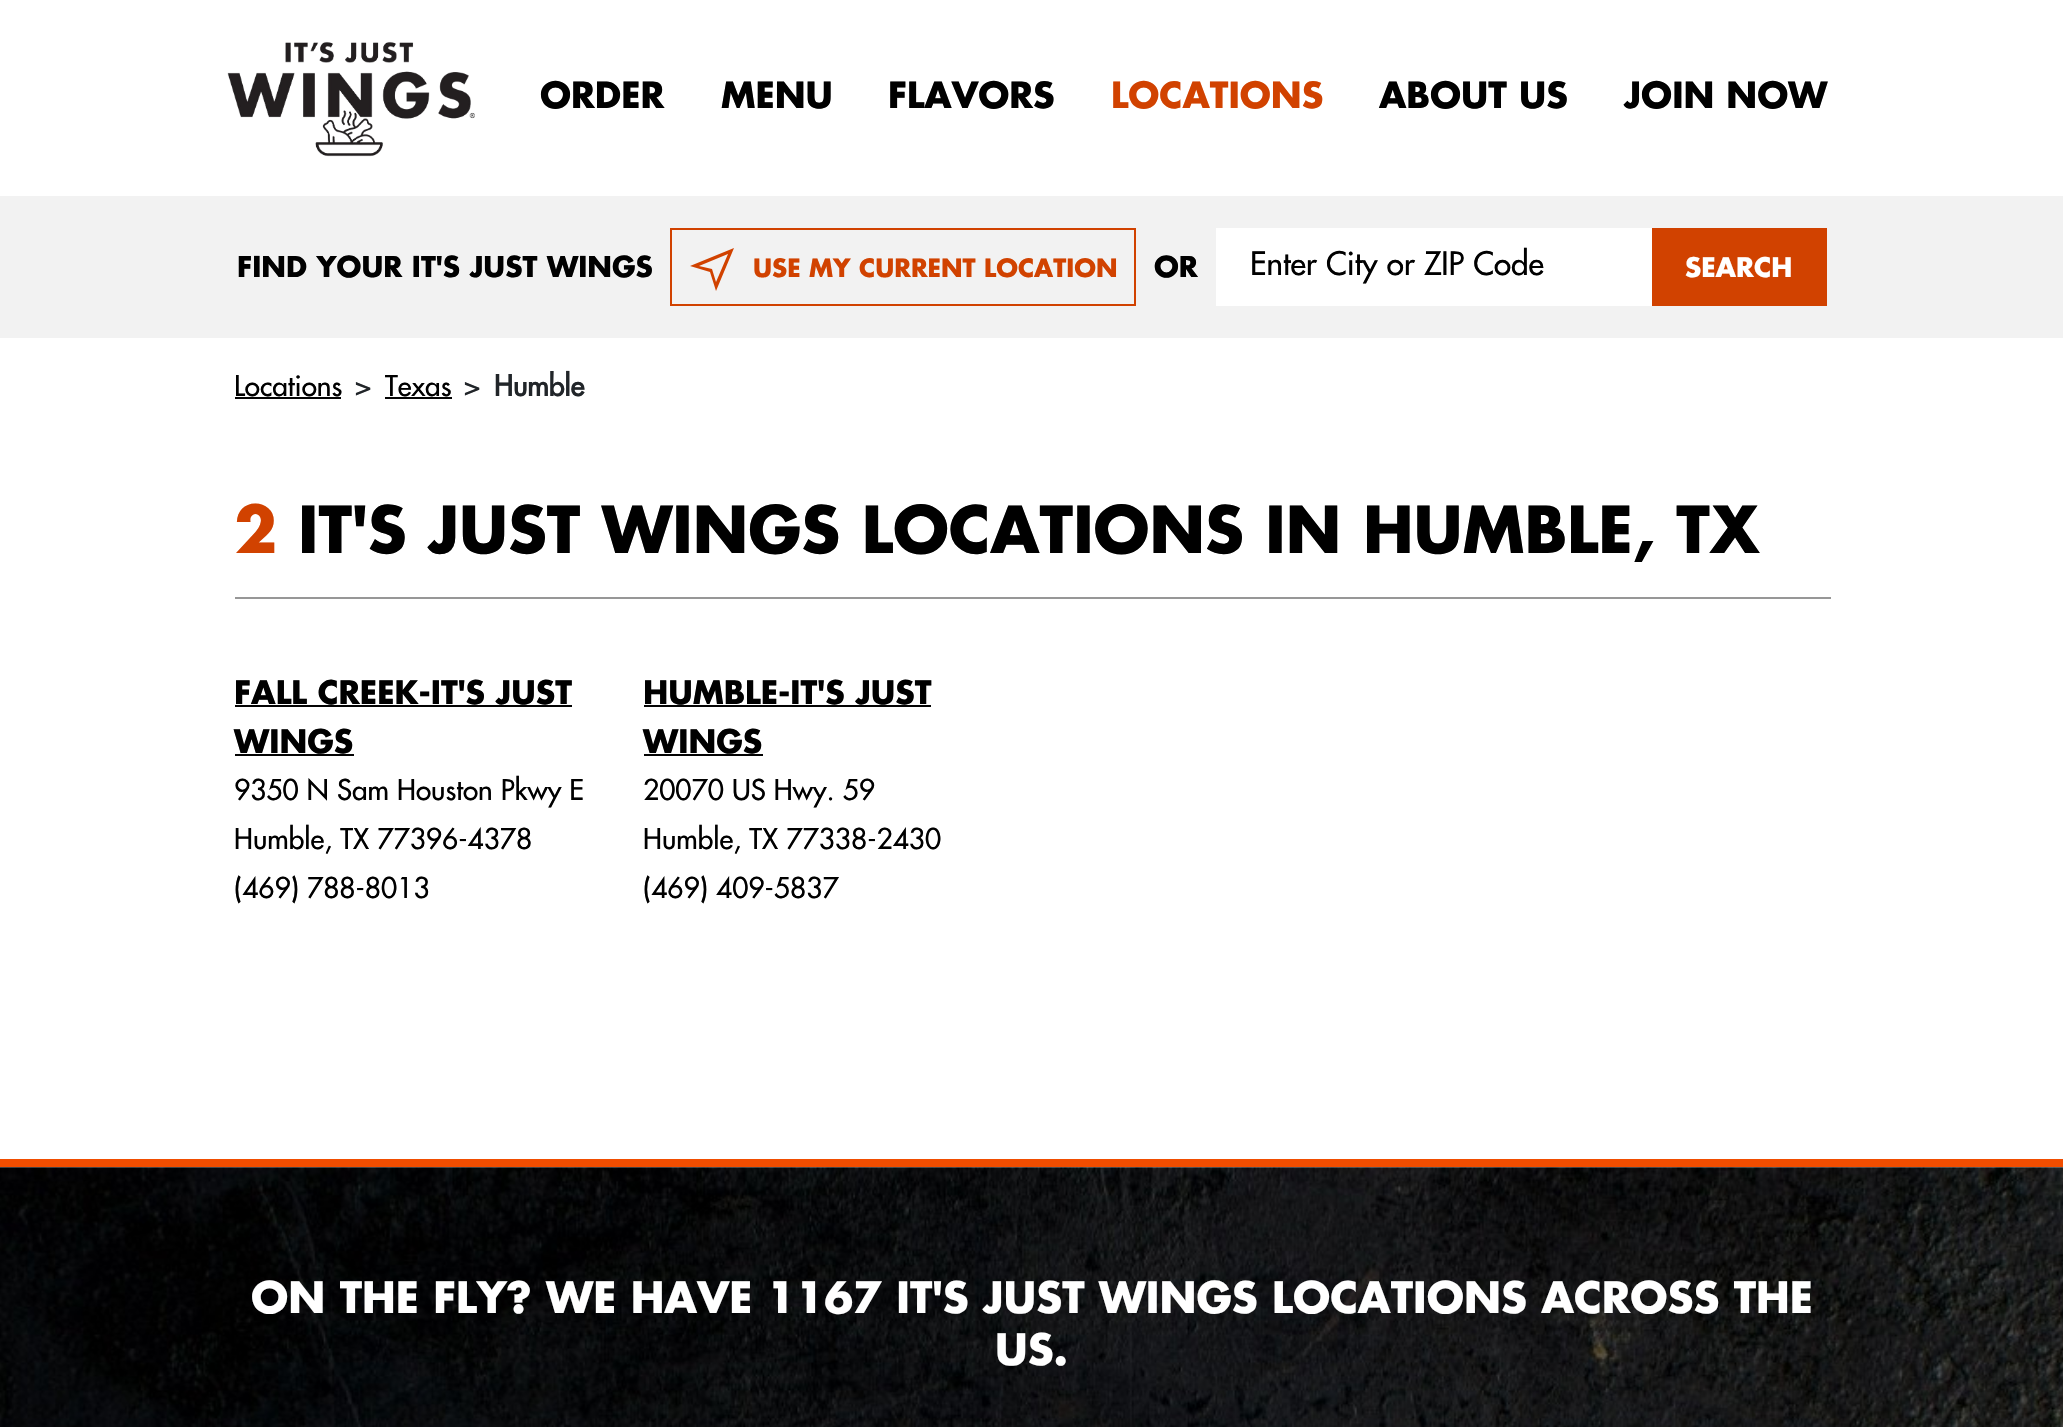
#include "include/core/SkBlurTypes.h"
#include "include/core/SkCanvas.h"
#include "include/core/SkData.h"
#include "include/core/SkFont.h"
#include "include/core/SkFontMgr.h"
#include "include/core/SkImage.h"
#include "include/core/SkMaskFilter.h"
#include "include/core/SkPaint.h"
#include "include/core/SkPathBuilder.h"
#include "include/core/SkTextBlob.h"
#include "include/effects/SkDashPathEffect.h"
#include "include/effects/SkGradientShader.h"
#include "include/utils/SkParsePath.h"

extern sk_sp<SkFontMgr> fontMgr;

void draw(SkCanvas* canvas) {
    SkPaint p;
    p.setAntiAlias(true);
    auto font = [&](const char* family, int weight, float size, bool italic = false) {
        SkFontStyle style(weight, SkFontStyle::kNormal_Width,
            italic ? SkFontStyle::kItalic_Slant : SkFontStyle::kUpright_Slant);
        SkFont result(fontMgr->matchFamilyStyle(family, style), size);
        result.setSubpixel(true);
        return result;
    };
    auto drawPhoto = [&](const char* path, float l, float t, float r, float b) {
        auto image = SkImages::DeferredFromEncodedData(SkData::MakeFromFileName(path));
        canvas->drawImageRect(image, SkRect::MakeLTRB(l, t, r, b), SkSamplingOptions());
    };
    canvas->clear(0xFFFFFFFF);
    drawPhoto("media/1.png", 227, 41, 475, 157);
    auto font1 = font("Futura", 700, 35);
    p.setColor(0xFF000000);
    {
        const struct { const char* s; float x, y; } items[] = {
            {"ORDER", 540, 108},
            {"MENU", 721, 108},
            {"FLAVORS", 888, 108},
        };
        for (auto [s, x, y] : items) {
            canvas->drawString(s, x, y, font1, p);
        }
    }
    p.setColor(0xFFD14200);
    canvas->drawString("LOCATIONS", 1111, 108, font1, p);
    p.setColor(0xFF000000);
    canvas->drawString("ABOUT US", 1379, 108, font1, p);
    canvas->drawString("JOIN NOW", 1624, 108, font1, p);
    p.setColor(0xFFF2F2F2);
    canvas->drawRect(SkRect::MakeLTRB(0, 196, 2063, 338), p);
    auto font2 = font("Futura", 700, 28);
    p.setColor(0xFF000000);
    canvas->drawString("FIND YOUR IT'S JUST WINGS", 237, 277, font2, p);
    p.setStyle(SkPaint::kStroke_Style);
    p.setStrokeWidth(2);
    p.setColor(0xFFD14200);
    canvas->drawRect(SkRect::MakeLTRB(671, 229, 1135, 305), p);
    p.setStyle(SkPaint::kFill_Style);
    canvas->drawPath(SkPathBuilder(SkPathFillType::kEvenOdd).moveTo(734, 248).lineTo(690, 266).lineTo(710, 272).lineTo(716, 291).close().moveTo(712, 269).lineTo(699, 266).lineTo(728, 254).lineTo(716, 282).close().detach(), p);
    auto font3 = font("Futura", 700, 24.5f);
    canvas->drawString("USE MY CURRENT LOCATION", 753, 277, font3, p);
    p.setColor(0xFF000000);
    canvas->drawString("OR", 1154, 277, font2, p);
    p.setColor(0xFFFFFFFF);
    canvas->drawRect(SkRect::MakeLTRB(1216, 228, 1652, 306), p);
    auto font4 = font("Futura", 500, 31.5f);
    p.setColor(0xFF000000);
    canvas->drawString("Enter City or ZIP Code", 1250, 275, font4, p);
    p.setColor(0xFFD14200);
    canvas->drawRect(SkRect::MakeLTRB(1652, 228, 1827, 306), p);
    auto font5 = font("Futura", 700, 26.25f);
    p.setColor(0xFFFFFFFF);
    canvas->drawString("SEARCH", 1685, 277, font5, p);
    auto font6 = font("Futura", 500, 28);
    p.setColor(0xFF000000);
    canvas->drawString("Locations", 234, 396, font6, p);
    p.setColor(0xFF040404);
    canvas->drawRect(SkRect::MakeLTRB(235, 397, 341, 399), p);
    p.setColor(0xFF212529);
    canvas->drawString(">", 355, 396, font6, p);
    p.setColor(0xFF000000);
    canvas->drawString("Texas", 385, 396, font6, p);
    p.setColor(0xFF040404);
    canvas->drawRect(SkRect::MakeLTRB(385, 397, 452, 399), p);
    p.setColor(0xFF212529);
    canvas->drawString(">", 464, 396, font6, p);
    auto font7 = font("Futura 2", 700, 28);
    canvas->drawString("Humble", 494, 396, font7, p);
    p.setColor(0xFF979797);
    canvas->drawRect(SkRect::MakeLTRB(235, 597, 1831, 599), p);
    auto font8 = font("Futura", 700, 63);
    p.setColor(0xFFD14200);
    canvas->drawString("2", 234, 553, font8, p);
    p.setColor(0xFF000000);
    canvas->drawString("IT'S JUST WINGS LOCATIONS IN HUMBLE, TX", 298, 553, font8, p);
    auto font9 = font("Futura", 700, 31.5f);
    canvas->drawString("FALL CREEK-IT'S JUST", 234, 704, font9, p);
    p.setColor(0xFF040404);
    canvas->drawRect(SkRect::MakeLTRB(235, 705, 572, 707), p);
    p.setColor(0xFF000000);
    canvas->drawString("WINGS", 234, 753, font9, p);
    p.setColor(0xFF040404);
    canvas->drawRect(SkRect::MakeLTRB(235, 754, 354, 756), p);
    p.setColor(0xFF000000);
    {
        const struct { const char* s; float x, y; } items[] = {
            {"9350 N Sam Houston Pkwy E", 234, 800},
            {"Humble, TX 77396-4378", 234, 849},
            {"(469) 788-8013", 234, 898},
        };
        for (auto [s, x, y] : items) {
            canvas->drawString(s, x, y, font6, p);
        }
    }
    canvas->drawString("HUMBLE-IT'S JUST", 643, 704, font9, p);
    p.setColor(0xFF040404);
    canvas->drawRect(SkRect::MakeLTRB(644, 705, 931, 707), p);
    p.setColor(0xFF000000);
    canvas->drawString("WINGS", 643, 753, font9, p);
    p.setColor(0xFF040404);
    canvas->drawRect(SkRect::MakeLTRB(644, 754, 763, 756), p);
    p.setColor(0xFF000000);
    {
        const struct { const char* s; float x, y; } items[] = {
            {"20070 US Hwy. 59", 643, 800},
            {"Humble, TX 77338-2430", 643, 849},
            {"(469) 409-5837", 643, 898},
        };
        for (auto [s, x, y] : items) {
            canvas->drawString(s, x, y, font6, p);
        }
    }
    drawPhoto("media/2.png", 0, 1167, 2063, 1427);
    p.setColor(0xFFF14D00);
    canvas->drawRect(SkRect::MakeLTRB(0, 1159, 2063, 1167), p);
    auto font10 = font("Futura", 700, 42);
    p.setColor(0xFFFFFFFF);
    canvas->drawString("ON THE FLY? WE HAVE 1167 IT'S JUST WINGS LOCATIONS ACROSS THE", 251, 1313, font10, p);
    canvas->drawString("US.", 995, 1365, font10, p);
}
